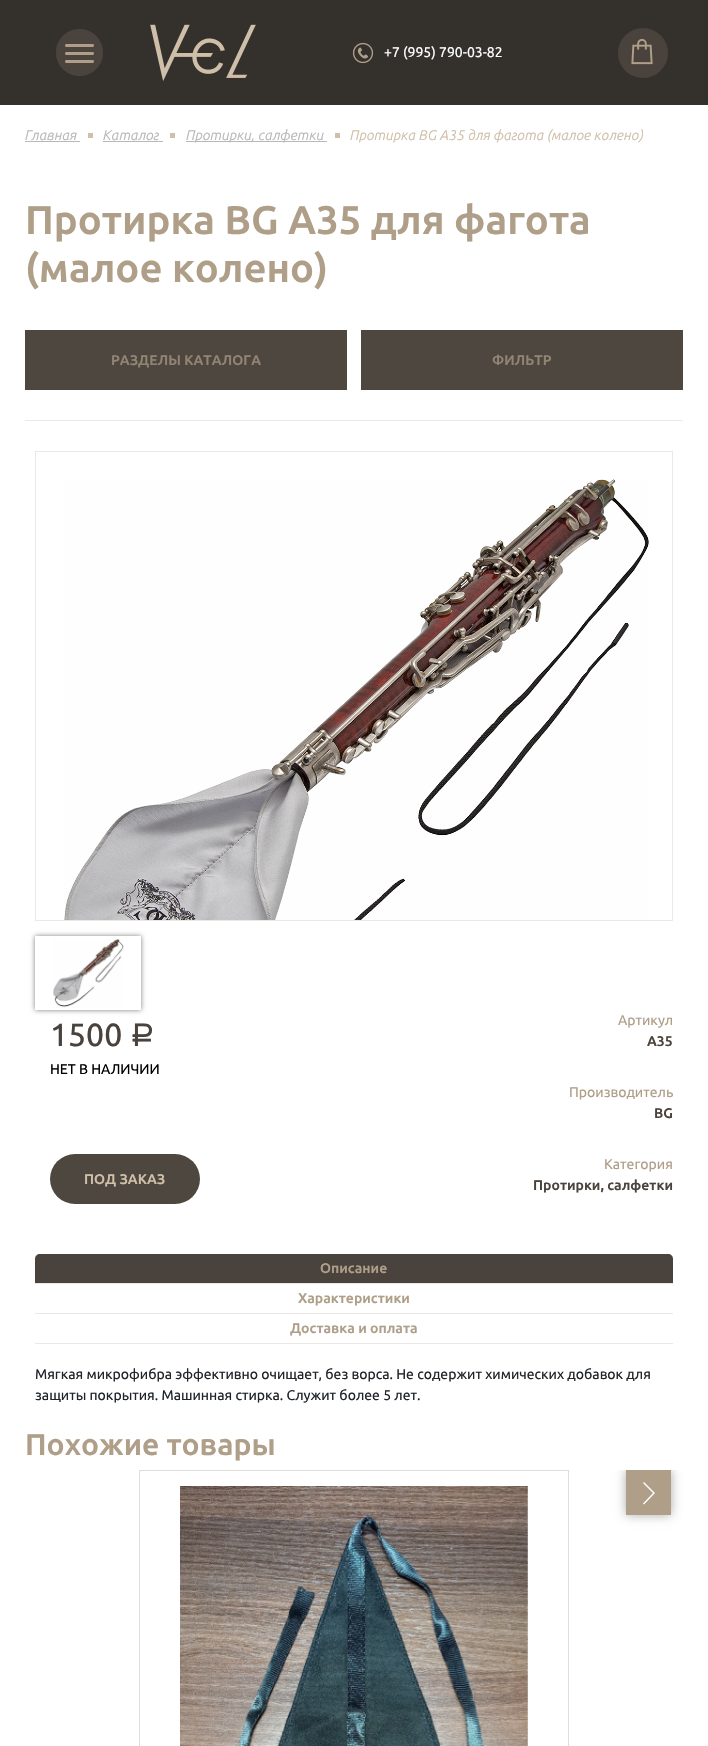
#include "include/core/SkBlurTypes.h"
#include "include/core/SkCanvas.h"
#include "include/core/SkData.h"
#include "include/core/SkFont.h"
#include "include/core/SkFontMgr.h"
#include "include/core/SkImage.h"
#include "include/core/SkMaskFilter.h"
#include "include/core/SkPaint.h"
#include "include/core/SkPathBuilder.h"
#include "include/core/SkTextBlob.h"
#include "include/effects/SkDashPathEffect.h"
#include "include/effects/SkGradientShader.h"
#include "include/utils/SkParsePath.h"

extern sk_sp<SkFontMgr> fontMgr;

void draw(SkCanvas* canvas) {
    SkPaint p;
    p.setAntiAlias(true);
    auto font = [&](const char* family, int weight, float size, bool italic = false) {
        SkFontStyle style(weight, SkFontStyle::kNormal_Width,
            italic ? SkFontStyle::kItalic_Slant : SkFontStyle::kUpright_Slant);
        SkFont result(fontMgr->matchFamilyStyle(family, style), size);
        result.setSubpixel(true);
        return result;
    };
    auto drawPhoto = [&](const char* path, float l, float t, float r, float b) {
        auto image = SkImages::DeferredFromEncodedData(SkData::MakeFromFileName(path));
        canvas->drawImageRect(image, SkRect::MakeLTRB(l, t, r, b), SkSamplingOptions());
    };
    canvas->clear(0xFFFFFFFF);
    p.setColor(0xFF34312D);
    canvas->drawRect(SkRect::MakeLTRB(0, 0, 708, 105), p);
    drawPhoto("media/1.png", 56, 29, 103, 76);
    drawPhoto("media/2.png", 150, 24, 256, 81);
    drawPhoto("media/3.png", 352, 42, 374, 64);
    auto font1 = font("Ubuntu", 400, 14);
    p.setColor(0xFFFFFFFF);
    canvas->drawString("+7 (995) 790-03-82", 384, 57, font1, p);
    p.setColor(0xFF4A433D);
    canvas->drawCircle(643, 53, 25, p);
    drawPhoto("media/4.png", 631, 38, 653, 65);
    auto font2 = font("Ubuntu", 400, 14, true);
    p.setColor(0xFFB8B8B8);
    canvas->drawString("Главная", 25, 140, font2, p);
    canvas->drawRect(SkRect::MakeLTRB(25, 141, 80, 142), p);
    p.setColor(0xFFD0BFA9);
    canvas->drawRect(SkRect::MakeLTRB(88, 133, 93, 138), p);
    p.setColor(0xFFB8B8B8);
    canvas->drawString("Каталог", 103, 140, font2, p);
    {
        const struct { float l, t, r, b; SkColor color; } items[] = {
            {103, 141, 163, 142, 0xFFB8B8B8},
            {170, 133, 175, 138, 0xFFD0BFA9},
            {186, 141, 327, 142, 0xFFB8B8B8},
        };
        for (auto [l, t, r, b, color] : items) {
            p.setColor(color);
            canvas->drawRect(SkRect::MakeLTRB(l, t, r, b), p);
        }
    }
    canvas->drawString("Протирки, салфетки", 186, 140, font2, p);
    p.setColor(0xFFD0BFA9);
    canvas->drawRect(SkRect::MakeLTRB(335, 133, 340, 138), p);
    canvas->drawString("Протирка BG A35 для фагота (малое колено)", 350, 140, font2, p);
    auto font3 = font("Ubuntu", 700, 40);
    p.setColor(0xFFAF9E88);
    canvas->drawString("Протирка BG A35 для фагота", 25, 234, font3, p);
    canvas->drawString("(малое колено)", 25, 282, font3, p);
    p.setColor(0xFF4D473F);
    canvas->drawRect(SkRect::MakeLTRB(25, 330, 347, 390), p);
    auto font4 = font("Ubuntu", 700, 14);
    p.setColor(0xFF928472);
    canvas->drawString("РАЗДЕЛЫ КАТАЛОГА", 111, 365, font4, p);
    p.setColor(0xFF4D473F);
    canvas->drawRect(SkRect::MakeLTRB(361, 330, 683, 390), p);
    p.setColor(0xFF928472);
    canvas->drawString("ФИЛЬТР", 492, 365, font4, p);
    p.setColor(0xFFECE8E5);
    canvas->drawRect(SkRect::MakeLTRB(25, 420, 683, 421), p);
    p.setStyle(SkPaint::kStroke_Style);
    p.setStrokeWidth(1);
    canvas->drawRect(SkRect::MakeLTRB(35.5f, 451.5f, 672.5f, 920.5f), p);
    drawPhoto("media/5.png", 64, 479, 649, 920);
    canvas->save();
    canvas->clipPath(SkPathBuilder(SkPathFillType::kEvenOdd).moveTo(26, 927).lineTo(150, 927).lineTo(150, 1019).lineTo(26, 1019).close().moveTo(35, 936).lineTo(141, 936).lineTo(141, 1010).lineTo(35, 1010).close().detach(), true);
    p.setStyle(SkPaint::kFill_Style);
    p.setColor(0xFF808080);
    p.setMaskFilter(SkMaskFilter::MakeBlur(kNormal_SkBlurStyle, 2.5f));
    canvas->drawRect(SkRect::MakeLTRB(35, 936, 141, 1010), p);
    p.setMaskFilter(nullptr);
    canvas->restore();
    drawPhoto("media/6.png", 53, 939, 124, 1008);
    auto font5 = font("Ubuntu", 500, 32);
    p.setColor(0xFF4A433D);
    canvas->drawString("1500", 50, 1046, font5, p);
    auto font6 = font("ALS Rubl", 400, 32);
    canvas->drawString("a", 130, 1046, font6, p);
    p.setColor(0xFF000000);
    canvas->drawString("НЕТ В НАЛИЧИИ", 50, 1074, font1, p);
    p.setColor(0xFFAF9E88);
    canvas->drawString("Артикул", 618, 1025, font1, p);
    p.setColor(0xFF4A433D);
    canvas->drawString("А35", 647, 1046, font4, p);
    p.setColor(0xFFAF9E88);
    canvas->drawString("Производитель", 569, 1097, font1, p);
    p.setColor(0xFF4A433D);
    canvas->drawString("BG", 654, 1118, font4, p);
    p.setColor(0xFF4D473F);
    canvas->drawRoundRect(SkRect::MakeLTRB(50, 1154, 200, 1204), 25, 25, p);
    p.setColor(0xFFD0BFA9);
    canvas->drawString("ПОД ЗАКАЗ", 84, 1184, font4, p);
    p.setColor(0xFFAF9E88);
    canvas->drawString("Категория", 604, 1169, font1, p);
    p.setColor(0xFF4A433D);
    canvas->drawString("Протирки, салфетки", 533, 1190, font4, p);
    canvas->drawPath(SkPathBuilder().moveTo(40, 1254).lineTo(668, 1254).cubicTo(671, 1254, 673, 1256, 673, 1259).lineTo(673, 1284).lineTo(35, 1284).lineTo(35, 1259).cubicTo(35, 1256, 37, 1254, 40, 1254).close().detach(), p);
    p.setColor(0xFFEAE7E4);
    canvas->drawRect(SkRect::MakeLTRB(35, 1283, 673, 1284), p);
    p.setColor(0xFFAF9E88);
    canvas->drawString("Описание", 320, 1273, font4, p);
    p.setColor(0xFFEAE7E4);
    canvas->drawRect(SkRect::MakeLTRB(35, 1313, 673, 1314), p);
    p.setColor(0xFFAF9E88);
    canvas->drawString("Характеристики", 298, 1303, font4, p);
    p.setColor(0xFFEAE7E4);
    canvas->drawRect(SkRect::MakeLTRB(35, 1343, 673, 1344), p);
    p.setColor(0xFFAF9E88);
    canvas->drawString("Доставка и оплата", 290, 1333, font4, p);
    p.setColor(0xFF212529);
    canvas->drawString("Мягкая микрофибра эффективно очищает, без ворса. Не содержит химических добавок для", 35, 1379, font1, p);
    canvas->drawString("защиты покрытия. Машинная стирка. Служит более 5 лет.", 35, 1400, font1, p);
    auto font7 = font("Ubuntu", 700, 30);
    p.setColor(0xFFAF9E88);
    canvas->drawString("Похожие товары", 25, 1455, font7, p);
    p.setStyle(SkPaint::kStroke_Style);
    p.setColor(0xFFE3DDD8);
    canvas->drawRect(SkRect::MakeLTRB(139.5f, 1470.5f, 568.5f, 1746.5f), p);
    drawPhoto("media/7.png", 180, 1486, 528, 1746);
    canvas->save();
    canvas->clipRect(SkRect::MakeLTRB(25, 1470, 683, 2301));
    p.setStyle(SkPaint::kFill_Style);
    p.setColor(0xFFA9A9A9);
    p.setMaskFilter(SkMaskFilter::MakeBlur(kNormal_SkBlurStyle, 5));
    canvas->drawRect(SkRect::MakeLTRB(626, 1470, 671, 1515), p);
    p.setMaskFilter(nullptr);
    canvas->restore();
    p.setColor(0xFFAF9E88);
    canvas->drawRect(SkRect::MakeLTRB(626, 1470, 671, 1515), p);
    p.setColor(0xFFFFFFFF);
    canvas->drawPath(SkPathBuilder().moveTo(655, 1493).lineTo(644, 1504.5f).lineTo(643, 1503.5f).lineTo(653, 1493).lineTo(643, 1483).lineTo(644, 1482).close().detach(), p);
}
